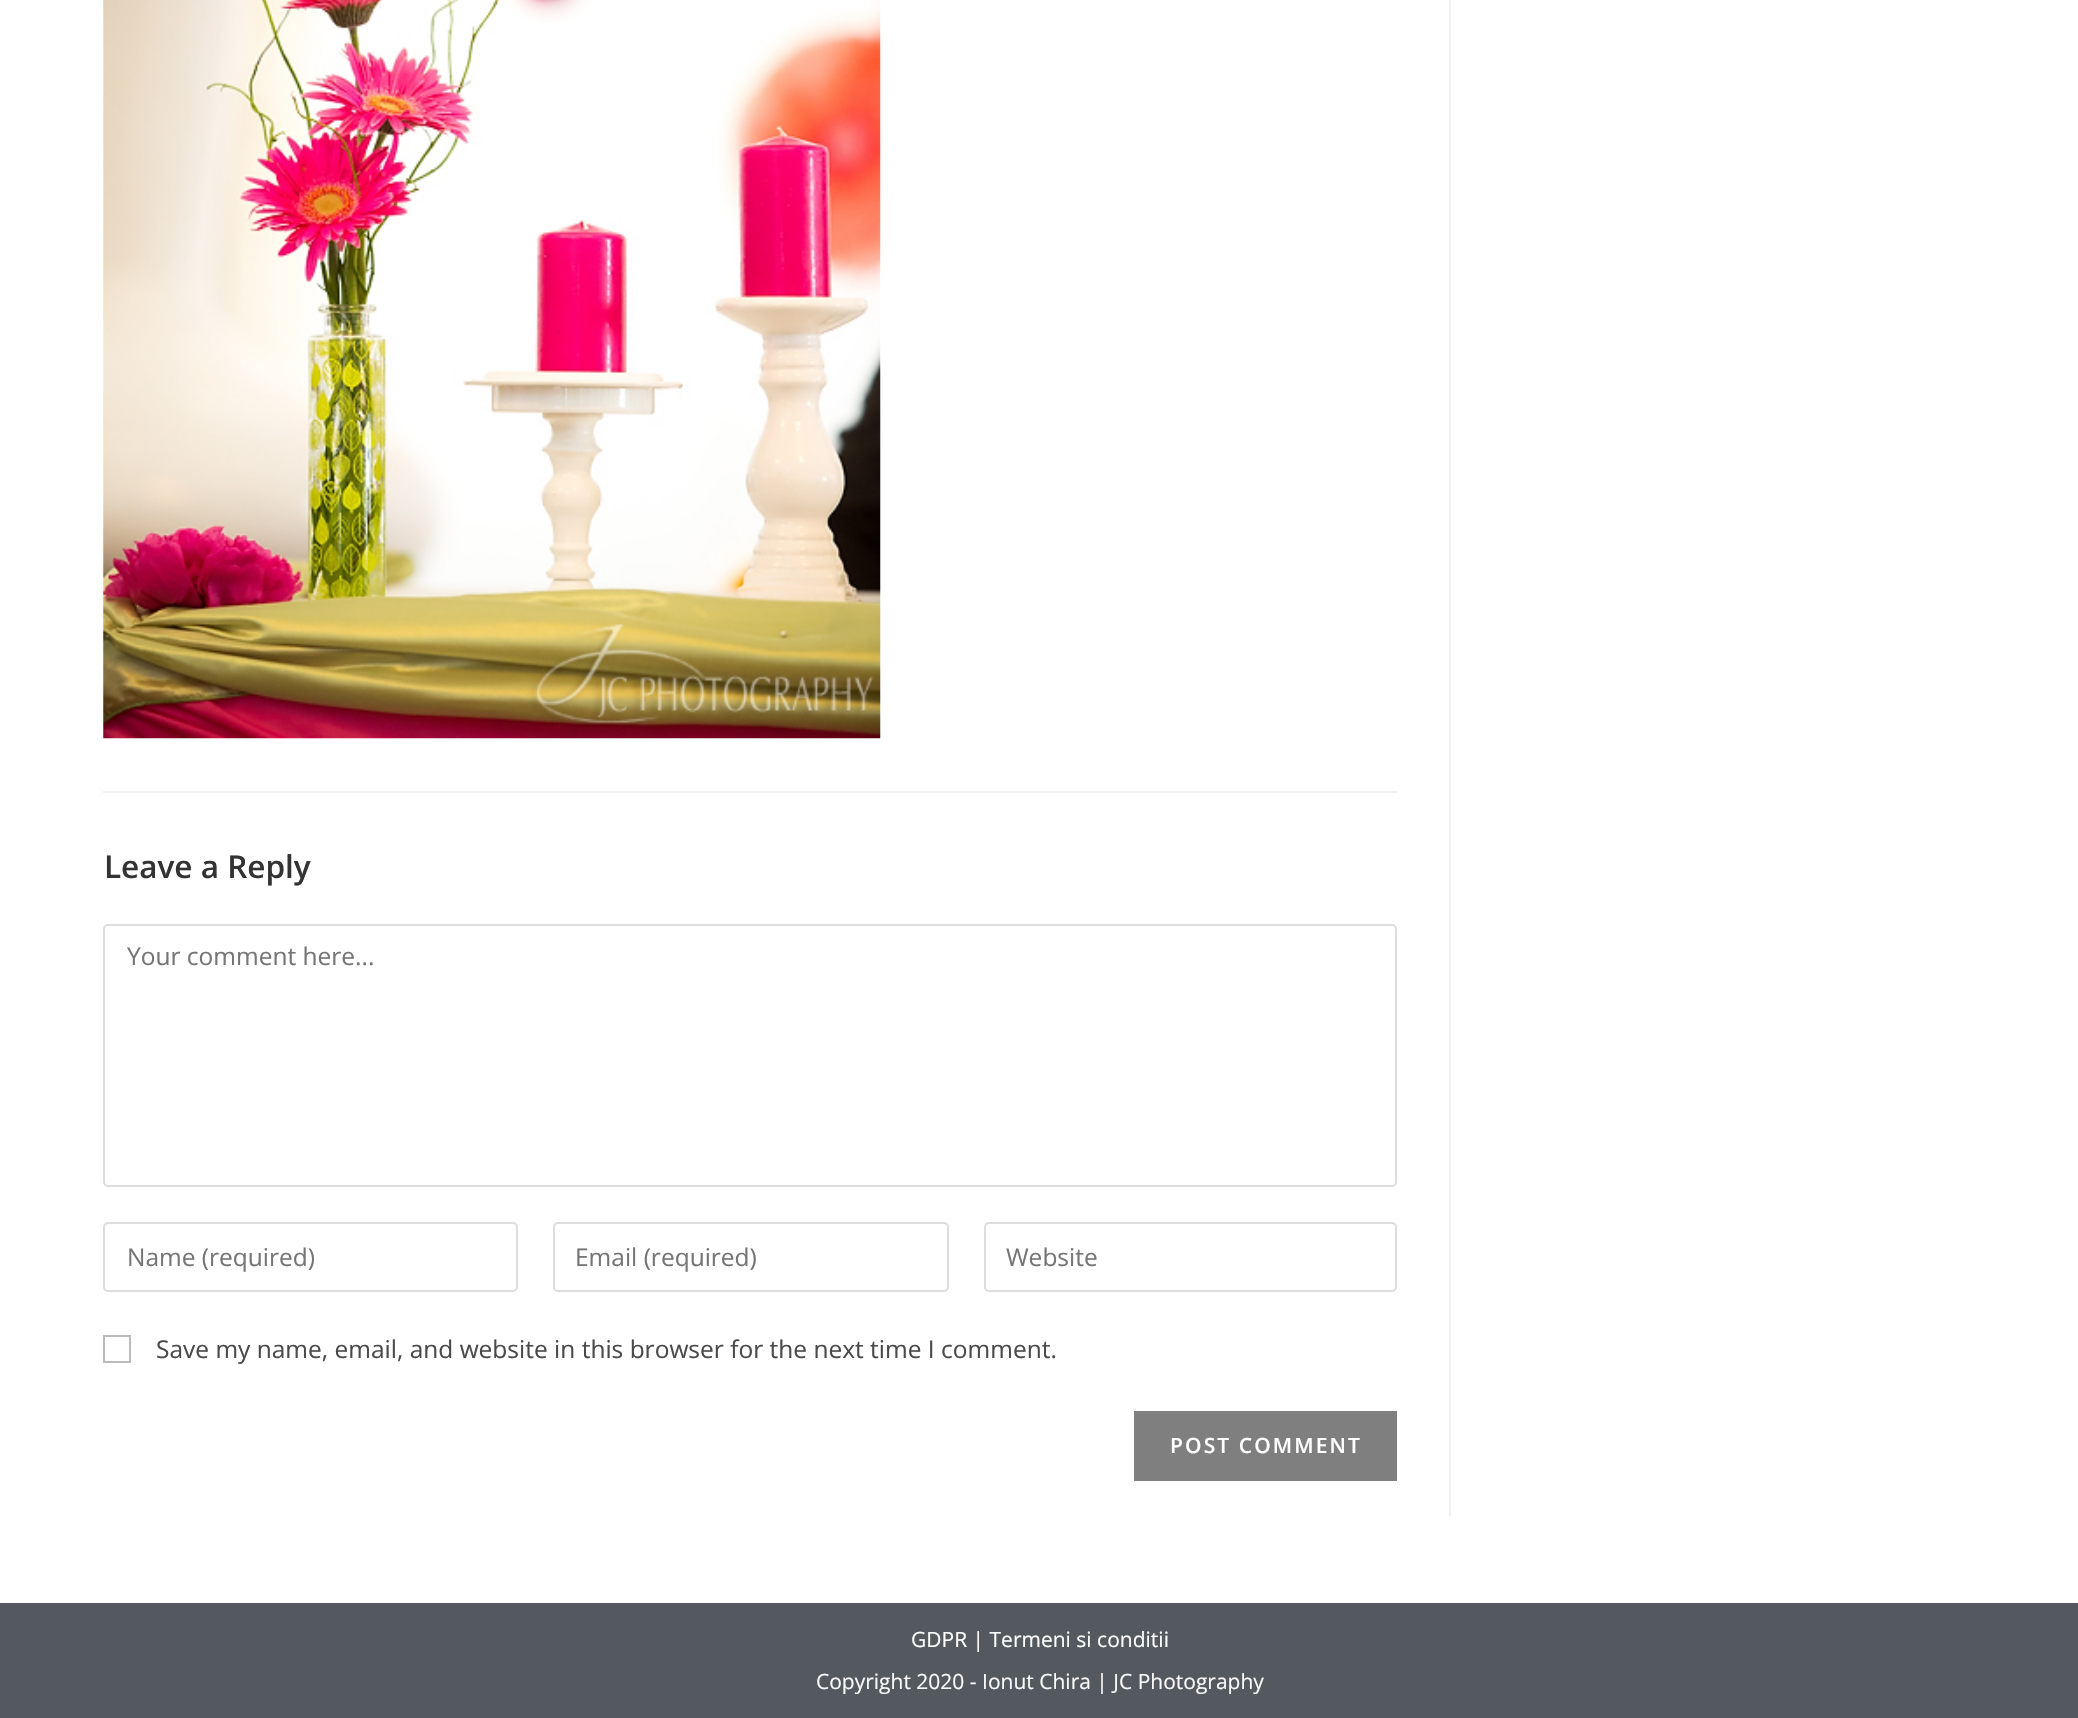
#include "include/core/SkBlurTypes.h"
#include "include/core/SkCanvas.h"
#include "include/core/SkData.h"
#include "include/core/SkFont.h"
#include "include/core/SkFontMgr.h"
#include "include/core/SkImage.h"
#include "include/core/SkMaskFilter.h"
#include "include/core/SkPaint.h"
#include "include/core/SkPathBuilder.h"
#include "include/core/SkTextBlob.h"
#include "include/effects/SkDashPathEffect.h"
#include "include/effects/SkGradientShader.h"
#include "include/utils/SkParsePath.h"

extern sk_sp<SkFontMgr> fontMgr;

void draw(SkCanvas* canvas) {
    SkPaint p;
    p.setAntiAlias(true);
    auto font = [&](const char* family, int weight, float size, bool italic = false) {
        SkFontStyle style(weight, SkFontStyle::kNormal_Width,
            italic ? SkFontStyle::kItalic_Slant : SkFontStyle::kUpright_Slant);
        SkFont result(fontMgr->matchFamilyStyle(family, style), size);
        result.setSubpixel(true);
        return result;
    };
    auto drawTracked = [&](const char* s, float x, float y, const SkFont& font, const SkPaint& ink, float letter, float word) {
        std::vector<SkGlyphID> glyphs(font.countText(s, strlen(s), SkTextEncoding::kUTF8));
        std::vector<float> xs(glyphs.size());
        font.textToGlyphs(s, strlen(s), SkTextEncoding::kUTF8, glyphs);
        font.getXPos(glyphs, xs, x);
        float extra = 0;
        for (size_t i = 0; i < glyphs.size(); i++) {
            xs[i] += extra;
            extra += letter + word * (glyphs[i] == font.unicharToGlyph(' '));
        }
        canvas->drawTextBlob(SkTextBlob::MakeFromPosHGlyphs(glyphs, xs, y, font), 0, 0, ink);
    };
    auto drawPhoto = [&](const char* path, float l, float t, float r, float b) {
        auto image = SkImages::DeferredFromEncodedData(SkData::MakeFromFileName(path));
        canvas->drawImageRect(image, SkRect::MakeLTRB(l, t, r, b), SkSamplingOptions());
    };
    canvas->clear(0xFFFFFFFF);
    p.setColor(0xFFF1F1F1);
    canvas->drawRect(SkRect::MakeLTRB(1449, 0, 1451, 1516), p);
    drawPhoto("media/1.png", 103, 0, 881, 739);
    canvas->drawRect(SkRect::MakeLTRB(103, 791, 1397, 793), p);
    auto font1 = font("Open Sans", 600, 31.5f);
    p.setColor(0xFF333333);
    canvas->drawString("Leave a Reply", 104, 878, font1, p);
    p.setStyle(SkPaint::kStroke_Style);
    p.setStrokeWidth(2);
    p.setColor(0xFFDDDDDD);
    canvas->drawRoundRect(SkRect::MakeLTRB(104, 925, 1396, 1186), 4, 4, p);
    auto font2 = font("Open Sans", 400, 24.5f);
    p.setStyle(SkPaint::kFill_Style);
    p.setColor(0xFF757575);
    canvas->drawString("Your comment here...", 127, 965, font2, p);
    p.setStyle(SkPaint::kStroke_Style);
    p.setColor(0xFFDDDDDD);
    canvas->drawRoundRect(SkRect::MakeLTRB(104, 1223, 517, 1291), 4, 4, p);
    p.setStyle(SkPaint::kFill_Style);
    p.setColor(0xFF757575);
    canvas->drawString("Name (required)", 127, 1266, font2, p);
    p.setStyle(SkPaint::kStroke_Style);
    p.setColor(0xFFDDDDDD);
    canvas->drawRoundRect(SkRect::MakeLTRB(554, 1223, 948, 1291), 4, 4, p);
    p.setStyle(SkPaint::kFill_Style);
    p.setColor(0xFF757575);
    canvas->drawString("Email (required)", 575, 1266, font2, p);
    p.setStyle(SkPaint::kStroke_Style);
    p.setColor(0xFFDDDDDD);
    canvas->drawRoundRect(SkRect::MakeLTRB(985, 1223, 1396, 1291), 4, 4, p);
    p.setStyle(SkPaint::kFill_Style);
    p.setColor(0xFF757575);
    canvas->drawString("Website", 1006, 1266, font2, p);
    p.setStyle(SkPaint::kStroke_Style);
    p.setColor(0xFFBBBBBB);
    canvas->drawRect(SkRect::MakeLTRB(104, 1336, 130, 1362), p);
    p.setStyle(SkPaint::kFill_Style);
    p.setColor(0xFF4A4A4A);
    canvas->drawString("Save my name, email, and website in this browser for the next time I comment.", 156, 1358, font2, p);
    p.setColor(0xFF7F7F7F);
    canvas->drawRect(SkRect::MakeLTRB(1134, 1411, 1397, 1481), p);
    auto font3 = font("Open Sans", 600, 21);
    p.setColor(0xFFFFFFFF);
    drawTracked("POST COMMENT", 1170, 1453, font3, p, 2.1f, 0);
    p.setColor(0xFF54595F);
    canvas->drawRect(SkRect::MakeLTRB(0, 1603, 2078, 1718), p);
    auto font4 = font("Open Sans", 400, 21);
    p.setColor(0xFFFFFFFF);
    canvas->drawString("GDPR | Termeni si conditii", 911, 1647, font4, p);
    p.setColor(0xFFF9F9F9);
    canvas->drawString("Copyright 2020 - Ionut Chira | JC Photography", 816, 1689, font4, p);
}
